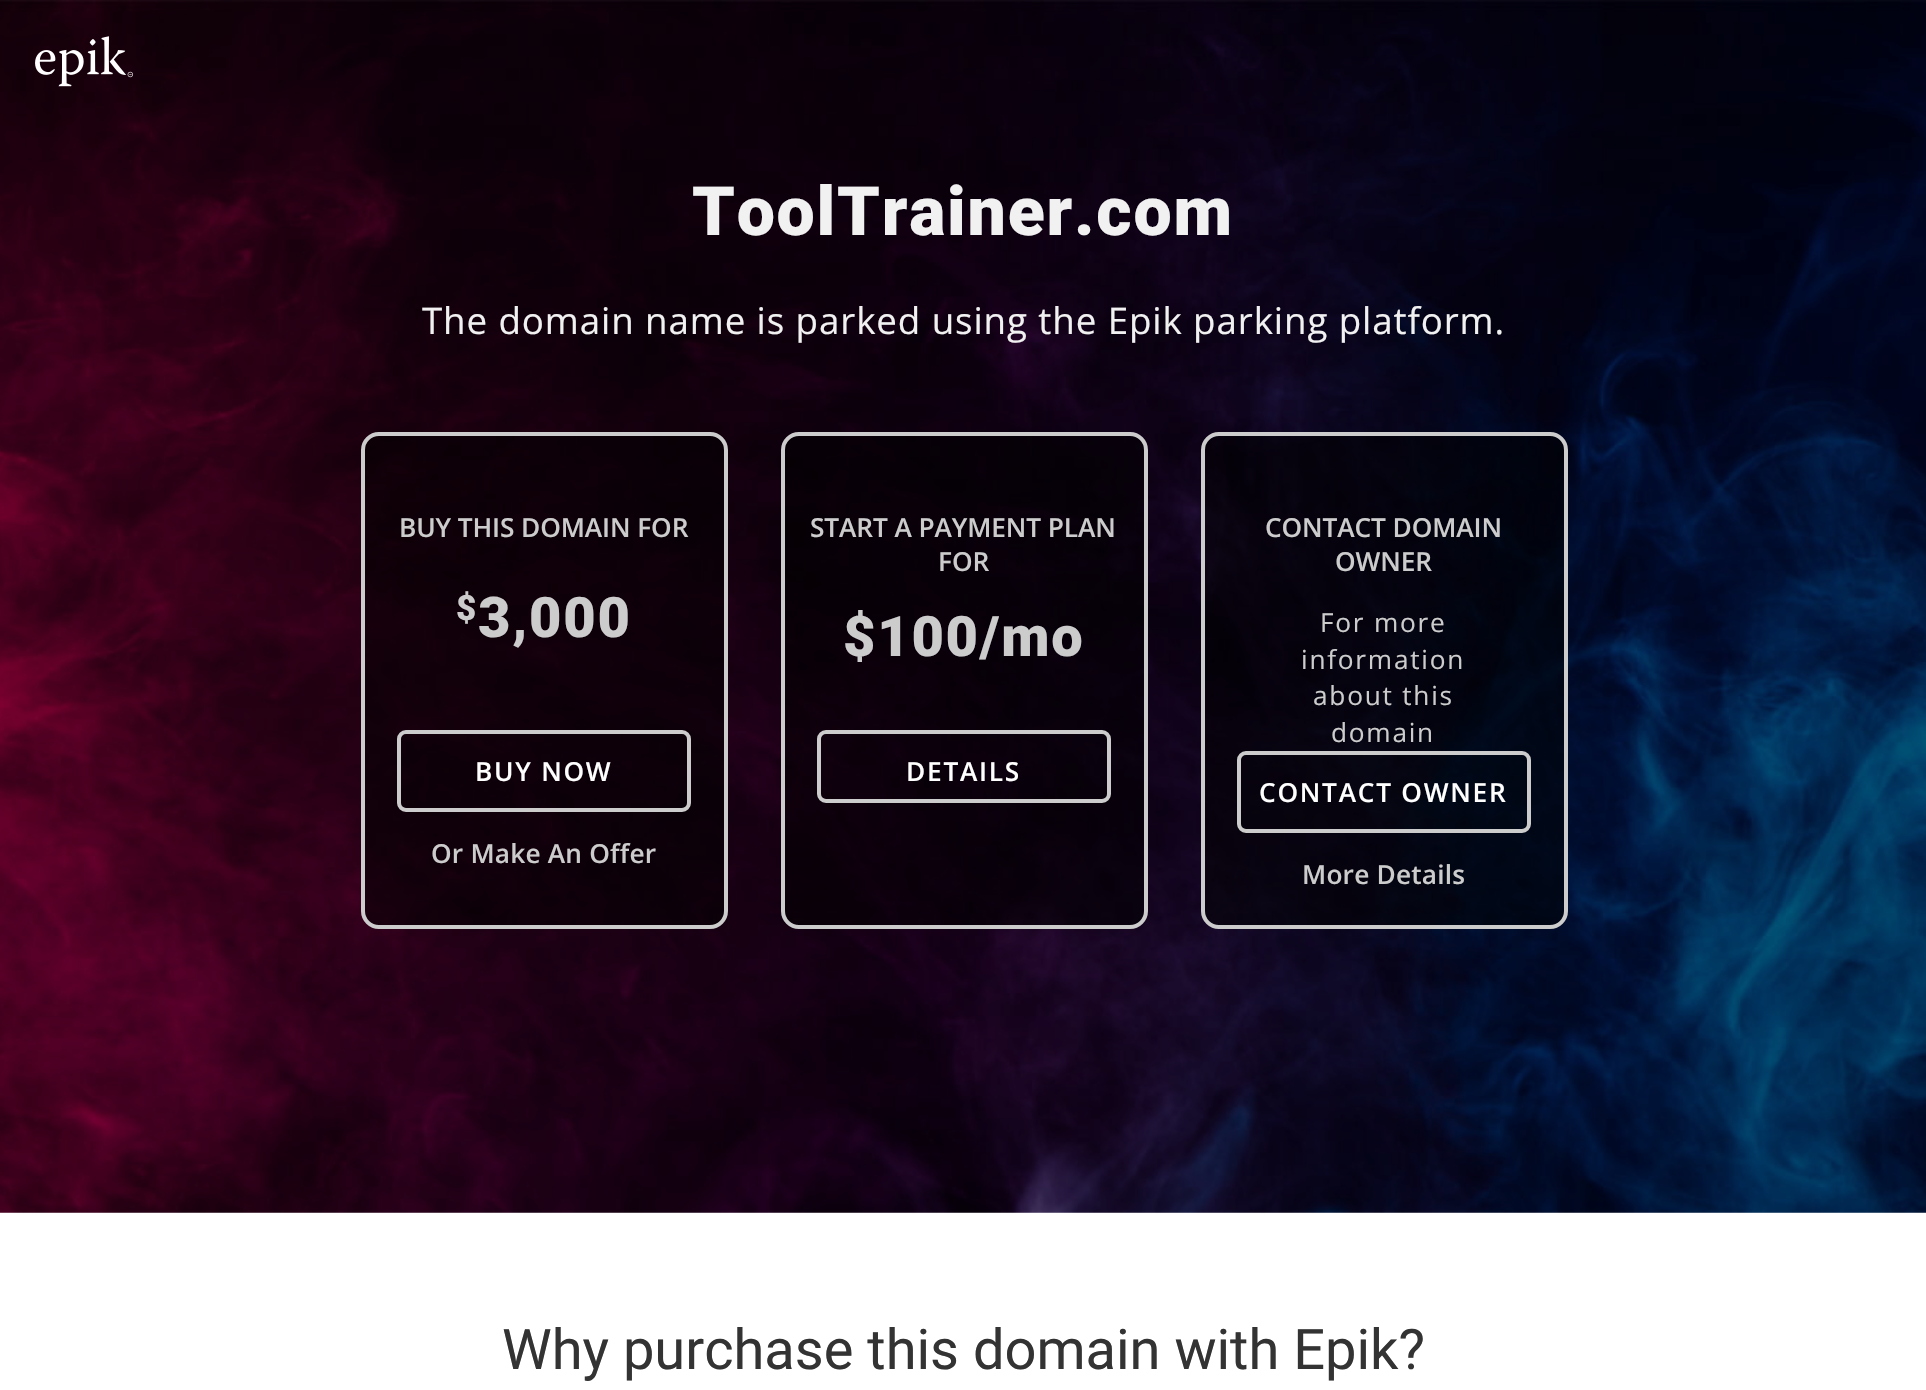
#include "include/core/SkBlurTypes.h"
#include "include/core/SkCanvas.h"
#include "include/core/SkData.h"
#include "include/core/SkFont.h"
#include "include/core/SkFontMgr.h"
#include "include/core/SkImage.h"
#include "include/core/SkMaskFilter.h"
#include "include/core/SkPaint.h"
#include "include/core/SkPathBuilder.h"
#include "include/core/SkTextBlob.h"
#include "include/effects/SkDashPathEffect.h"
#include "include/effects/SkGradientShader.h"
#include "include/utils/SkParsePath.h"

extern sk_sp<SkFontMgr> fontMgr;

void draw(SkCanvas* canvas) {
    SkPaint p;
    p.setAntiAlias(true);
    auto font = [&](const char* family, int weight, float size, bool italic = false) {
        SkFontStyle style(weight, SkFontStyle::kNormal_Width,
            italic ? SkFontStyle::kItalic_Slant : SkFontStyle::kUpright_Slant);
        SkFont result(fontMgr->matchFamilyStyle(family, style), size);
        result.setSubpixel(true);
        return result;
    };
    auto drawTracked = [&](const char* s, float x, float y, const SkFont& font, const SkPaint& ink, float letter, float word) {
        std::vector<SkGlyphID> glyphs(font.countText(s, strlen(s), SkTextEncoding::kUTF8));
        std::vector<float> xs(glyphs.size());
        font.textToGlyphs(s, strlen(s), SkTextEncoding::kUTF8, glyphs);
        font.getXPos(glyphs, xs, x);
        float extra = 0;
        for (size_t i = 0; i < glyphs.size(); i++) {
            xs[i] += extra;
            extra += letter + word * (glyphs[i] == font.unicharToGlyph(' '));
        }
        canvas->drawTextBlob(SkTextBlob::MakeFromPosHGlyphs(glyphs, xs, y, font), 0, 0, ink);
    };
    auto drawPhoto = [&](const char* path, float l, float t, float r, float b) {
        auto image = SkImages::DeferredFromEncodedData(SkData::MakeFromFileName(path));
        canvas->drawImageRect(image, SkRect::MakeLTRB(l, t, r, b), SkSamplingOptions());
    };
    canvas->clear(0xFFFFFFFF);
    drawPhoto("media/1.png", 0, 0, 1926, 1213);
    drawPhoto("media/2.png", 35, 36, 133, 87);
    auto font1 = font("Roboto", 900, 68);
    p.setColor(0xFFF1F1F1);
    drawTracked("ToolTrainer.com", 692, 235, font1, p, 1.75f, 0);
    auto font2 = font("Open Sans", 400, 36.75f);
    drawTracked("The domain name is parked using the Epik parking platform.", 422, 334, font2, p, 0.88f, 0);
    p.setColor(0x87000000);
    canvas->drawRoundRect(SkRect::MakeLTRB(363, 434, 726, 927), 16, 16, p);
    p.setStyle(SkPaint::kStroke_Style);
    p.setStrokeWidth(4);
    p.setColor(0xFFCCCCCC);
    canvas->drawRoundRect(SkRect::MakeLTRB(363, 434, 726, 927), 16, 16, p);
    auto font3 = font("Open Sans", 600, 26.25f);
    p.setStyle(SkPaint::kFill_Style);
    drawTracked("BUY THIS DOMAIN FOR", 399, 537, font3, p, -0.1f, 0);
    auto font4 = font("Roboto", 900, 35);
    drawTracked("$", 456, 620, font4, p, 1.75f, 0);
    auto font5 = font("Roboto", 900, 56);
    drawTracked("3,000", 478, 637, font5, p, 1.75f, 0);
    p.setColor(0x21000000);
    canvas->drawRoundRect(SkRect::MakeLTRB(399, 732, 689, 810), 7, 7, p);
    p.setStyle(SkPaint::kStroke_Style);
    p.setColor(0xFFCCCCCC);
    canvas->drawRoundRect(SkRect::MakeLTRB(399, 732, 689, 810), 7, 7, p);
    p.setStyle(SkPaint::kFill_Style);
    p.setColor(0xFFFFFFFF);
    drawTracked("BUY NOW", 475, 781, font3, p, 1.75f, 0);
    p.setColor(0xFFCCCCCC);
    drawTracked("Or Make An Offer", 431, 863, font3, p, 0.2f, 0);
    p.setColor(0x87000000);
    canvas->drawRoundRect(SkRect::MakeLTRB(783, 434, 1146, 927), 16, 16, p);
    p.setStyle(SkPaint::kStroke_Style);
    p.setColor(0xFFCCCCCC);
    canvas->drawRoundRect(SkRect::MakeLTRB(783, 434, 1146, 927), 16, 16, p);
    p.setStyle(SkPaint::kFill_Style);
    drawTracked("START A PAYMENT PLAN", 810, 537, font3, p, -0.1f, 0);
    drawTracked("FOR", 938, 571, font3, p, -0.1f, 0);
    drawTracked("$100/mo", 843, 656, font5, p, 1.75f, 0);
    p.setStyle(SkPaint::kStroke_Style);
    canvas->drawRoundRect(SkRect::MakeLTRB(819, 732, 1109, 801), 7, 7, p);
    p.setStyle(SkPaint::kFill_Style);
    p.setColor(0xFFFFFFFF);
    drawTracked("DETAILS", 906, 781, font3, p, 1.75f, 0);
    p.setColor(0x87000000);
    canvas->drawRoundRect(SkRect::MakeLTRB(1203, 434, 1566, 927), 16, 16, p);
    p.setStyle(SkPaint::kStroke_Style);
    p.setColor(0xFFCCCCCC);
    canvas->drawRoundRect(SkRect::MakeLTRB(1203, 434, 1566, 927), 16, 16, p);
    p.setStyle(SkPaint::kFill_Style);
    drawTracked("CONTACT DOMAIN", 1265, 537, font3, p, -0.1f, 0);
    drawTracked("OWNER", 1335, 571, font3, p, -0.1f, 0);
    auto font6 = font("Open Sans", 400, 26.25f);
    {
        const struct { const char* s; float x, y; } items[] = {
            {"For more", 1320, 632},
            {"information", 1301, 669},
            {"about this", 1313, 705},
            {"domain", 1331, 742},
        };
        for (auto [s, x, y] : items) {
            drawTracked(s, x, y, font6, p, 1.75f, 0);
        }
    }
    p.setColor(0x21000000);
    canvas->drawRoundRect(SkRect::MakeLTRB(1239, 753, 1529, 831), 7, 7, p);
    p.setStyle(SkPaint::kStroke_Style);
    p.setColor(0xFFCCCCCC);
    canvas->drawRoundRect(SkRect::MakeLTRB(1239, 753, 1529, 831), 7, 7, p);
    p.setStyle(SkPaint::kFill_Style);
    p.setColor(0xFFFFFFFF);
    drawTracked("CONTACT OWNER", 1259, 802, font3, p, 1.75f, 0);
    p.setColor(0xFFCCCCCC);
    drawTracked("More Details", 1302, 884, font3, p, 0.2f, 0);
    auto font7 = font("Roboto", 400, 56);
    p.setColor(0xFF333333);
    canvas->drawString("Why purchase this domain with Epik?", 502, 1369, font7, p);
}
